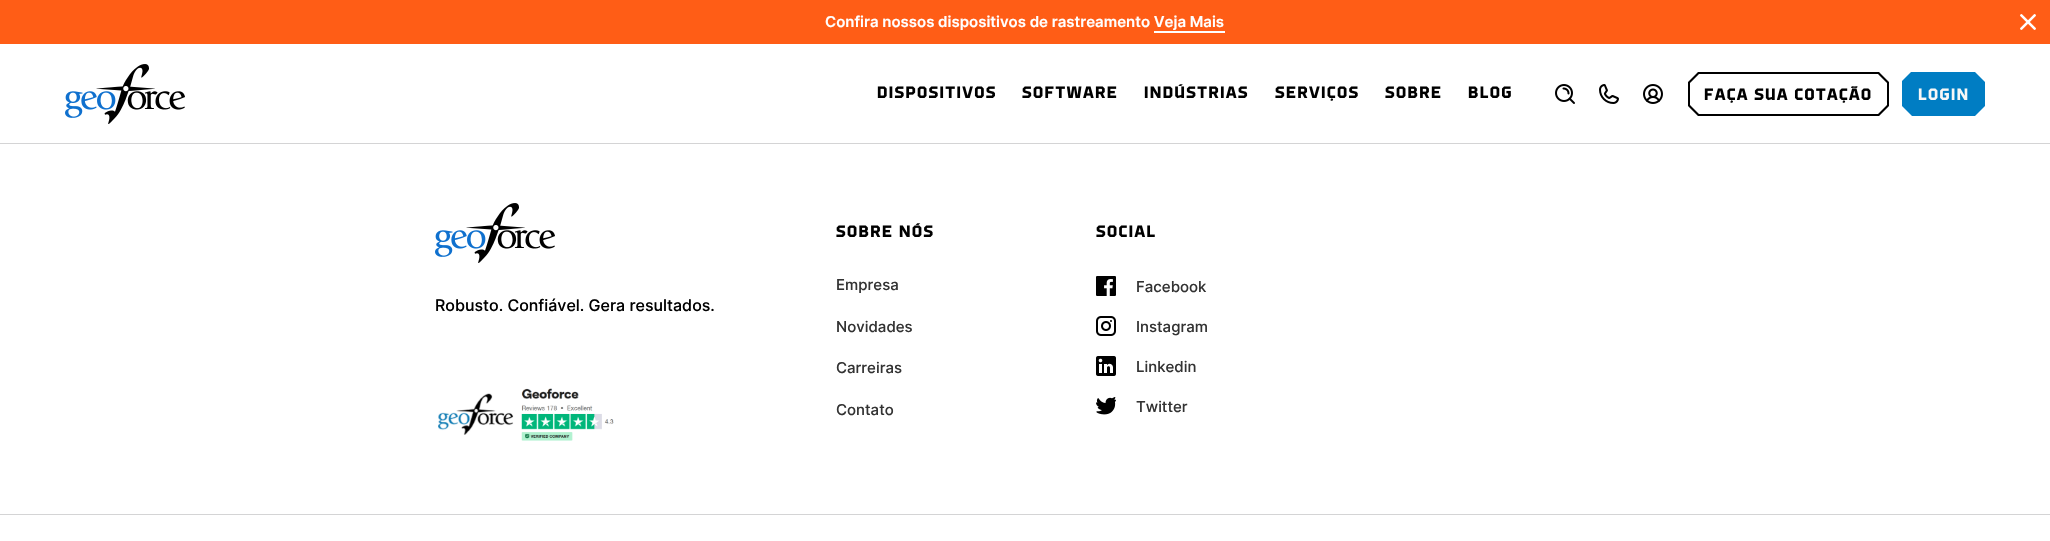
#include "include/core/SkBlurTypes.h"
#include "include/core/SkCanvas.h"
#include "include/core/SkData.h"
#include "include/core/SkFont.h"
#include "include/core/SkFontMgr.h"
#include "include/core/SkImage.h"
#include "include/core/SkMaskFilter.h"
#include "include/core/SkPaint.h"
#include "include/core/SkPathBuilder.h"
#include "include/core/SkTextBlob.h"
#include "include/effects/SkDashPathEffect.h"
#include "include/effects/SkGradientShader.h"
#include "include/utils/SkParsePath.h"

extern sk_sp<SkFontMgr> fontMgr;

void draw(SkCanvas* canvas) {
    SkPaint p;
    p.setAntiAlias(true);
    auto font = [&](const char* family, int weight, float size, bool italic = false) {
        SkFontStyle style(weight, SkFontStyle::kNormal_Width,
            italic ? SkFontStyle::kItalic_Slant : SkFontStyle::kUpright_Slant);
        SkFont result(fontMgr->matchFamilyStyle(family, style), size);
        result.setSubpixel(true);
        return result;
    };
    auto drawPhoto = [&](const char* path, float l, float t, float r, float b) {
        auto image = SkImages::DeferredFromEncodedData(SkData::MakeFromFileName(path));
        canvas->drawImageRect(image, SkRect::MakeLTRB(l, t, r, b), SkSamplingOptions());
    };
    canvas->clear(0xFFFFFFFF);
    p.setColor(0xFFD4D4D5);
    canvas->drawRect(SkRect::MakeLTRB(0, 143, 2050, 144), p);
    p.setColor(0xFFFF5D16);
    canvas->drawRect(SkRect::MakeLTRB(0, 0, 2050, 44), p);
    auto font1 = font("Inter", 600, 15);
    p.setColor(0xFFFFFFFF);
    canvas->drawString("Confira nossos dispositivos de rastreamento Veja Mais", 825, 27, font1, p);
    canvas->drawRect(SkRect::MakeLTRB(1154, 31, 1225, 33), p);
    drawPhoto("media/1.png", 2020, 14, 2036, 30);
    drawPhoto("media/2.png", 65, 64, 185, 124);
    drawPhoto("media/3.png", 877, 86, 995, 98);
    drawPhoto("media/4.png", 1022, 86, 1117, 98);
    drawPhoto("media/5.png", 1144, 84, 1248, 99);
    drawPhoto("media/6.png", 1275, 86, 1358, 101);
    drawPhoto("media/7.png", 1385, 86, 1441, 98);
    drawPhoto("media/8.png", 1468, 86, 1511, 98);
    drawPhoto("media/9.png", 1555, 84, 1575, 104);
    drawPhoto("media/10.png", 1599, 84, 1619, 104);
    drawPhoto("media/11.png", 1643, 84, 1663, 104);
    drawPhoto("media/12.png", 1704, 86, 1871, 103);
    p.setColor(0xFF000000);
    canvas->drawPath(SkPathBuilder(SkPathFillType::kEvenOdd).moveTo(1688, 82).lineTo(1688, 106).lineTo(1698, 116).lineTo(1879, 116).lineTo(1889, 106).lineTo(1889, 82).lineTo(1879, 72).lineTo(1698, 72).close().moveTo(1690, 105).lineTo(1690, 83).lineTo(1699, 74).lineTo(1878, 74).lineTo(1887, 83).lineTo(1887, 105).lineTo(1878, 114).lineTo(1699, 114).close().detach(), p);
    p.setColor(0xFF007DC3);
    canvas->drawPath(SkPathBuilder().moveTo(1985, 106).lineTo(1985, 82).lineTo(1975, 72).lineTo(1911, 72).lineTo(1902, 81).lineTo(1902, 106).lineTo(1912, 116).lineTo(1975, 116).close().detach(), p);
    drawPhoto("media/13.png", 1918, 88, 1968, 100);
    drawPhoto("media/2.png", 435, 203, 555, 263);
    auto font2 = font("Inter", 500, 16);
    p.setColor(0xFF000000);
    canvas->drawString("Robusto. Confiável. Gera resultados.", 435, 311, font2, p);
    drawPhoto("media/14.png", 438, 388, 614, 441);
    drawPhoto("media/15.png", 836, 223, 933, 237);
    auto font3 = font("Inter", 500, 15);
    p.setColor(0xFF333333);
    {
        const struct { const char* s; float x, y; } items[] = {
            {"Empresa", 836, 290},
            {"Novidades", 836, 332},
            {"Carreiras", 836, 373},
            {"Contato", 836, 415},
        };
        for (auto [s, x, y] : items) {
            canvas->drawString(s, x, y, font3, p);
        }
    }
    drawPhoto("media/16.png", 1096, 225, 1155, 237);
    drawPhoto("media/17.png", 1096, 276, 1116, 296);
    canvas->drawString("Facebook", 1136, 292, font3, p);
    drawPhoto("media/18.png", 1096, 316, 1116, 336);
    canvas->drawString("Instagram", 1136, 332, font3, p);
    drawPhoto("media/19.png", 1096, 356, 1116, 376);
    canvas->drawString("Linkedin", 1136, 372, font3, p);
    drawPhoto("media/20.png", 1096, 397, 1116, 415);
    canvas->drawString("Twitter", 1136, 412, font3, p);
    p.setColor(0xFFD4D4D5);
    canvas->drawRect(SkRect::MakeLTRB(0, 514, 2050, 515), p);
}
